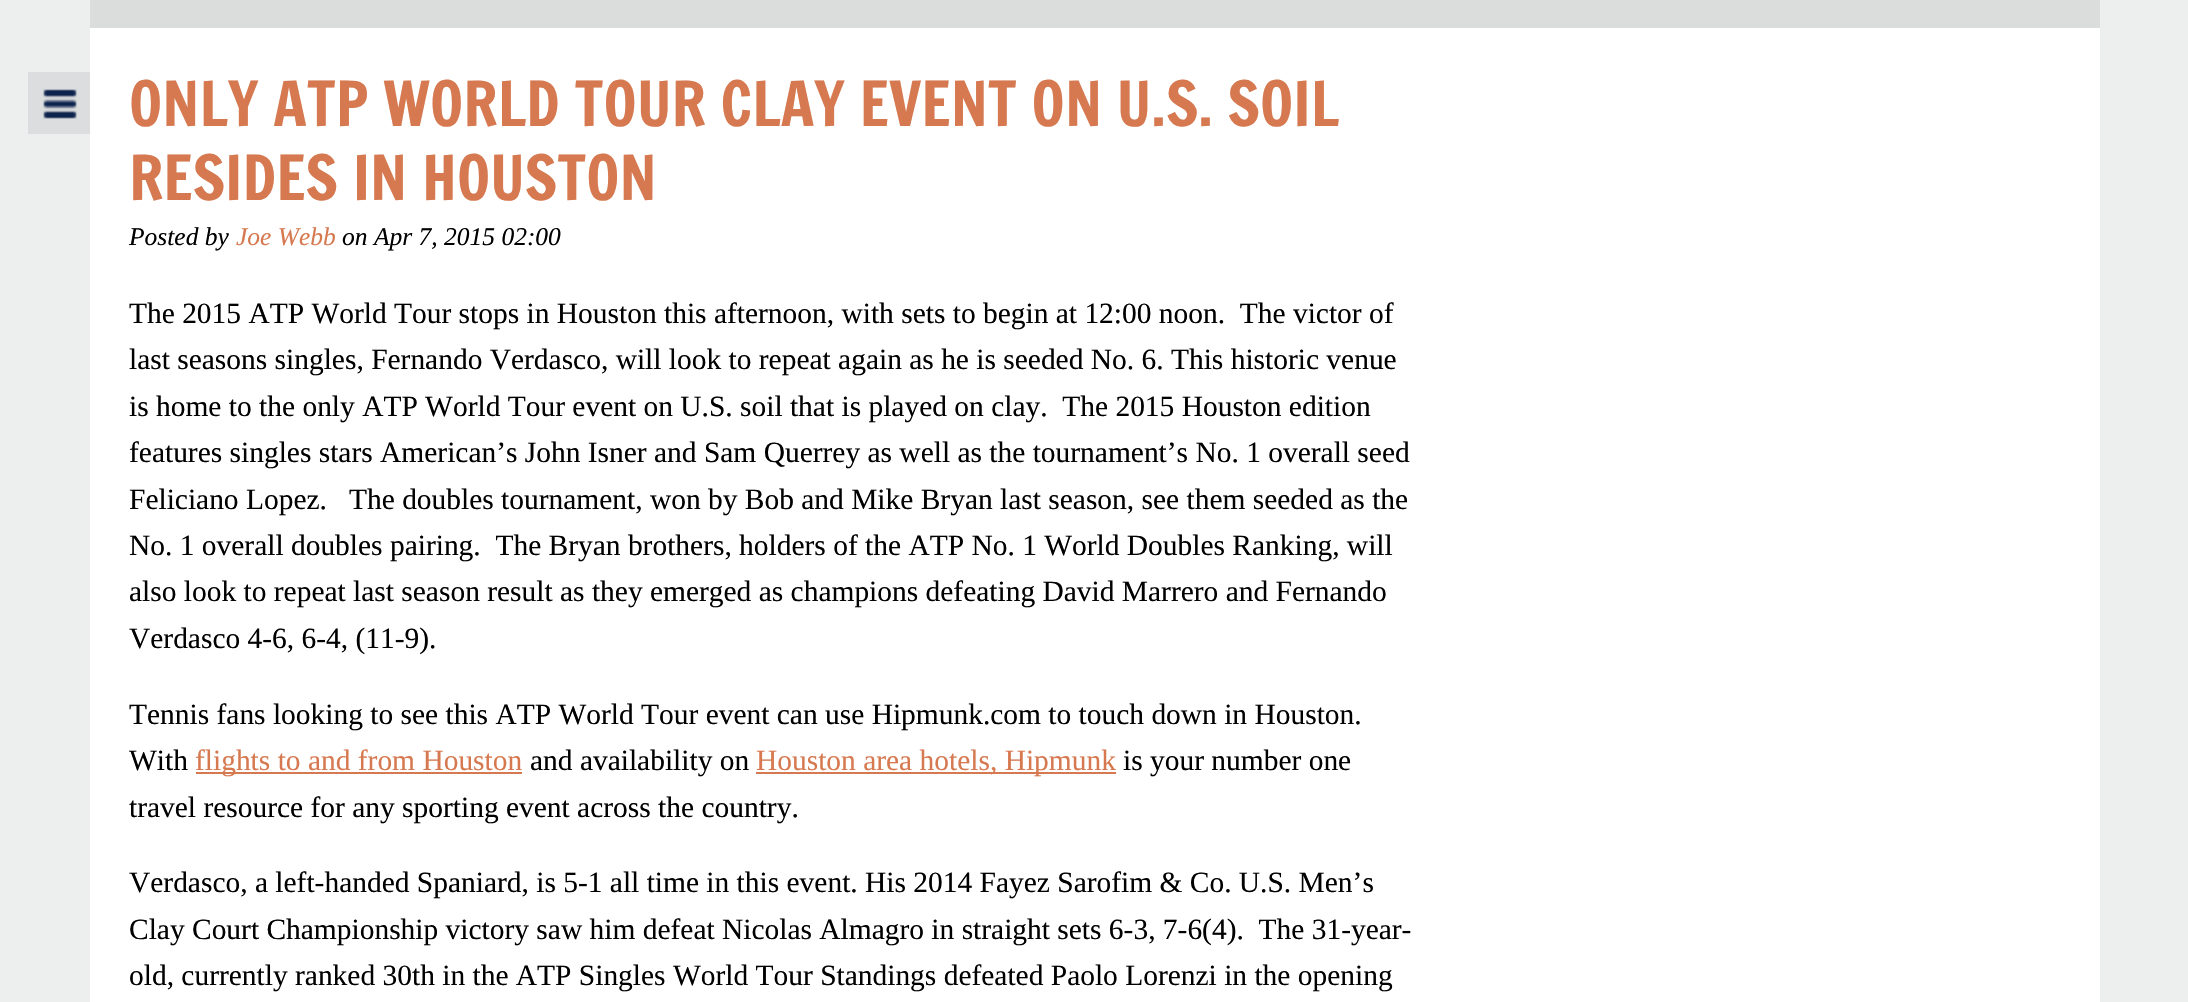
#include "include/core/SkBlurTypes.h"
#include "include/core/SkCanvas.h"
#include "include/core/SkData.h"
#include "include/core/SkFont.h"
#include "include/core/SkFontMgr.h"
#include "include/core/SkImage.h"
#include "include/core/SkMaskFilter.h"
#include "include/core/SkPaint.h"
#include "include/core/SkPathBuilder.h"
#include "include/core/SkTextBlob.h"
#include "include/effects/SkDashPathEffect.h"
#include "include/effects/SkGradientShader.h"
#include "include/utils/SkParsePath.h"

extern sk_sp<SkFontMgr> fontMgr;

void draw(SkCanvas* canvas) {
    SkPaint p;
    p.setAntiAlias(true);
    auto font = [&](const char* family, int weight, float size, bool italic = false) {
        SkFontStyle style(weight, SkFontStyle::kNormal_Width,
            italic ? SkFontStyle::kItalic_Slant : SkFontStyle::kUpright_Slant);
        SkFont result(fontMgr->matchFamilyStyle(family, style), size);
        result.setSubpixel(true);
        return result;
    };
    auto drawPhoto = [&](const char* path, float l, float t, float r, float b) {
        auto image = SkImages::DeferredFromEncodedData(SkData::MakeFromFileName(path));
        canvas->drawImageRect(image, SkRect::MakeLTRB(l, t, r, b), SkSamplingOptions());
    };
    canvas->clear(0xFFEDEFEF);
    {
        const struct { float l, t, r, b; SkColor color; } items[] = {
            {90, 28, 2100, 1002, 0xFFFFFFFF},
            {90, 0, 2100, 28, 0xFFDBDDDD},
            {28, 72, 90, 134, 0xFFDCDDDE},
        };
        for (auto [l, t, r, b, color] : items) {
            p.setColor(color);
            canvas->drawRect(SkRect::MakeLTRB(l, t, r, b), p);
        }
    }
    drawPhoto("media/1.png", 43, 89, 77, 119);
    auto font1 = font("Francois One", 400, 60.75f);
    p.setColor(0xFFD67950);
    canvas->drawString("ONLY ATP WORLD TOUR CLAY EVENT ON U.S. SOIL", 129, 126, font1, p);
    canvas->drawString("RESIDES IN HOUSTON", 129, 200, font1, p);
    auto font2 = font("Liberation Serif", 400, 25.5f, true);
    p.setColor(0xFF000000);
    canvas->drawString("Posted by", 129, 245, font2, p);
    p.setColor(0xFFD67950);
    canvas->drawString("Joe Webb", 236, 245, font2, p);
    p.setColor(0xFF000000);
    canvas->drawString("on Apr 7, 2015 02:00", 342, 245, font2, p);
    auto font3 = font("Liberation Serif", 400, 29.45f);
    {
        const struct { const char* s; float x, y; } items[] = {
            {"The 2015 ATP World Tour stops in Houston this afternoon, with sets to begin at 12:00 noon.  The victor of", 129, 323},
            {"last seasons singles, Fernando Verdasco, will look to repeat again as he is seeded No. 6. This historic venue", 129, 369},
            {"is home to the only ATP World Tour event on U.S. soil that is played on clay.  The 2015 Houston edition", 129, 416},
            {"features singles stars American’s John Isner and Sam Querrey as well as the tournament’s No. 1 overall seed", 129, 462},
            {"Feliciano Lopez.   The doubles tournament, won by Bob and Mike Bryan last season, see them seeded as the", 129, 509},
            {"No. 1 overall doubles pairing.  The Bryan brothers, holders of the ATP No. 1 World Doubles Ranking, will", 129, 555},
            {"also look to repeat last season result as they emerged as champions defeating David Marrero and Fernando", 129, 601},
            {"Verdasco 4-6, 6-4, (11-9).", 129, 648},
            {"Tennis fans looking to see this ATP World Tour event can use Hipmunk.com to touch down in Houston.", 129, 724},
            {"With", 129, 770},
        };
        for (auto [s, x, y] : items) {
            canvas->drawString(s, x, y, font3, p);
        }
    }
    p.setColor(0xFFD67950);
    canvas->drawRect(SkRect::MakeLTRB(196, 772, 522, 774), p);
    canvas->drawString("flights to and from Houston", 195, 770, font3, p);
    p.setColor(0xFF000000);
    canvas->drawString("and availability on", 530, 770, font3, p);
    p.setColor(0xFFD67950);
    canvas->drawRect(SkRect::MakeLTRB(756, 772, 1116, 774), p);
    canvas->drawString("Houston area hotels, Hipmunk", 756, 770, font3, p);
    p.setColor(0xFF000000);
    {
        const struct { const char* s; float x, y; } items[] = {
            {"is your number one", 1123, 770},
            {"travel resource for any sporting event across the country.", 129, 817},
            {"Verdasco, a left-handed Spaniard, is 5-1 all time in this event. His 2014 Fayez Sarofim & Co. U.S. Men’s", 129, 892},
            {"Clay Court Championship victory saw him defeat Nicolas Almagro in straight sets 6-3, 7-6(4).  The 31-year-", 129, 939},
            {"old, currently ranked 30th in the ATP Singles World Tour Standings defeated Paolo Lorenzi in the opening", 129, 985},
        };
        for (auto [s, x, y] : items) {
            canvas->drawString(s, x, y, font3, p);
        }
    }
}
